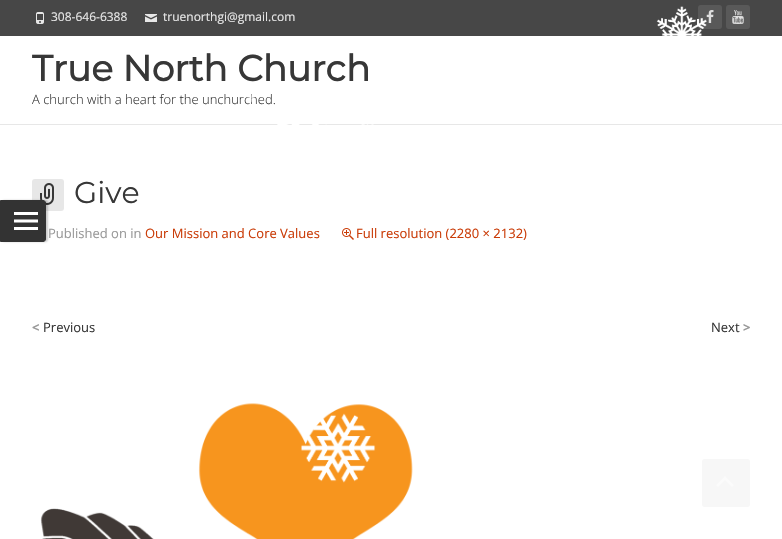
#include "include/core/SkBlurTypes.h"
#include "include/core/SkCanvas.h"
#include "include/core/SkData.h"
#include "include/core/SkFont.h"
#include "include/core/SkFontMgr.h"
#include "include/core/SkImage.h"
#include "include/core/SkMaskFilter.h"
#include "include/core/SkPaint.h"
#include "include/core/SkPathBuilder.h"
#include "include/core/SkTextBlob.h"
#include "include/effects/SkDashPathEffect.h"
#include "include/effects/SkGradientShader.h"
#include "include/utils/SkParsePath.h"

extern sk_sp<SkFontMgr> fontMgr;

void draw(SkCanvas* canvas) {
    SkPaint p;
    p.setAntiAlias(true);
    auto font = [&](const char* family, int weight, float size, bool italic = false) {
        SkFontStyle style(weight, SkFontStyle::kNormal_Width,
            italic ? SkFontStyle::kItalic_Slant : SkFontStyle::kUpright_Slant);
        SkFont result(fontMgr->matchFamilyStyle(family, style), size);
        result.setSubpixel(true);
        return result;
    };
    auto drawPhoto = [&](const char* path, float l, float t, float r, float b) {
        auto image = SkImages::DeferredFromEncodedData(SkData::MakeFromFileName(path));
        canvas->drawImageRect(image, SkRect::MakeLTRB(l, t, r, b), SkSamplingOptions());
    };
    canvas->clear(0xFFFFFFFF);
    p.setColor(0xFF474747);
    canvas->drawRect(SkRect::MakeLTRB(0, 0, 782, 36), p);
    p.setColor(0xFF595959);
    canvas->drawRoundRect(SkRect::MakeLTRB(698, 5, 722, 29), 3, 3, p);
    drawPhoto("media/4.png", 706, 10, 714, 23);
    drawPhoto("media/1.png", 656, 6, 707, 36);
    p.setColor(0xFFE7E7E7);
    canvas->drawRect(SkRect::MakeLTRB(0, 124, 782, 125), p);
    drawPhoto("media/2.png", 36, 12, 44, 24);
    auto font1 = font("Open Sans", 400, 12);
    canvas->drawString("308-646-6388", 51, 21, font1, p);
    drawPhoto("media/3.png", 145, 14, 157, 22);
    canvas->drawString("truenorthgi@gmail.com", 163, 21, font1, p);
    p.setColor(0xFF595959);
    canvas->drawRoundRect(SkRect::MakeLTRB(726, 5, 750, 29), 3, 3, p);
    drawPhoto("media/5.png", 732, 10, 744, 24);
    auto font2 = font("Montserrat", 700, 36);
    p.setColor(0xFF373737);
    canvas->drawString("True North Church", 32, 81, font2, p);
    auto font3 = font("Open Sans", 300, 13);
    canvas->drawString("A church with a heart for the unchurched.", 32, 104, font3, p);
    p.setColor(0xFFE7E7E7);
    canvas->drawRoundRect(SkRect::MakeLTRB(32, 179, 64, 211), 3, 3, p);
    drawPhoto("media/6.png", 40, 183, 54, 205);
    auto font4 = font("Montserrat", 100, 30);
    p.setColor(0xFF373737);
    canvas->drawString("Give", 74, 203, font4, p);
    auto font5 = font("Open Sans", 400, 13);
    p.setColor(0xFF999999);
    canvas->drawString("Published on in", 48, 238, font5, p);
    p.setColor(0xFFCA3C08);
    canvas->drawString("Our Mission and Core Values", 145, 238, font5, p);
    drawPhoto("media/7.png", 342, 228, 354, 240);
    canvas->drawString("Full resolution (2280 × 2132)", 356, 238, font5, p);
    auto font6 = font("Open Sans", 700, 13);
    p.setColor(0xFF999999);
    canvas->drawString("<", 32, 332, font6, p);
    p.setColor(0xFF373737);
    canvas->drawString("Previous", 43, 332, font5, p);
    canvas->drawString("Next", 711, 332, font5, p);
    p.setColor(0xFF999999);
    canvas->drawString(">", 743, 332, font6, p);
    drawPhoto("media/8.png", 40, 403, 413, 539);
    drawPhoto("media/9.png", 247, 94, 255, 103);
    drawPhoto("media/10.png", 277, 124, 327, 125);
    drawPhoto("media/11.png", 361, 124, 374, 125);
    p.setColor(0x33000000);
    p.setMaskFilter(SkMaskFilter::MakeBlur(kNormal_SkBlurStyle, 1));
    canvas->drawRoundRect(SkRect::MakeLTRB(2, 200, 48, 242), 3, 3, p);
    p.setMaskFilter(nullptr);
    p.setColor(0xFF333333);
    canvas->drawPath(SkPathBuilder().moveTo(0.5f, 200.5f).lineTo(43, 200.5f).cubicTo(44.5f, 200.5f, 45.5f, 201.5f, 45.5f, 203).lineTo(45.5f, 239).cubicTo(45.5f, 240.5f, 44.5f, 241.5f, 43, 241.5f).lineTo(0.5f, 241.5f).close().detach(), p);
    p.setStyle(SkPaint::kStroke_Style);
    p.setStrokeWidth(1);
    canvas->drawPath(SkPathBuilder().moveTo(0.5f, 200.5f).lineTo(43, 200.5f).cubicTo(44.5f, 200.5f, 45.5f, 201.5f, 45.5f, 203).lineTo(45.5f, 239).cubicTo(45.5f, 240.5f, 44.5f, 241.5f, 43, 241.5f).lineTo(0.5f, 241.5f).close().detach(), p);
    drawPhoto("media/12.png", 14, 212, 38, 230);
    drawPhoto("media/13.png", 301, 413, 376, 483);
    p.setStyle(SkPaint::kFill_Style);
    p.setColor(0xFFF7F7F7);
    canvas->drawRoundRect(SkRect::MakeLTRB(702, 459, 750, 507), 3, 3, p);
    p.setColor(0xFFFBFBFB);
    canvas->drawPath(SkPathBuilder().moveTo(732, 487).lineTo(725, 480).lineTo(718, 487).lineTo(716, 485).lineTo(725, 476).lineTo(734, 485).close().detach(), p);
}
